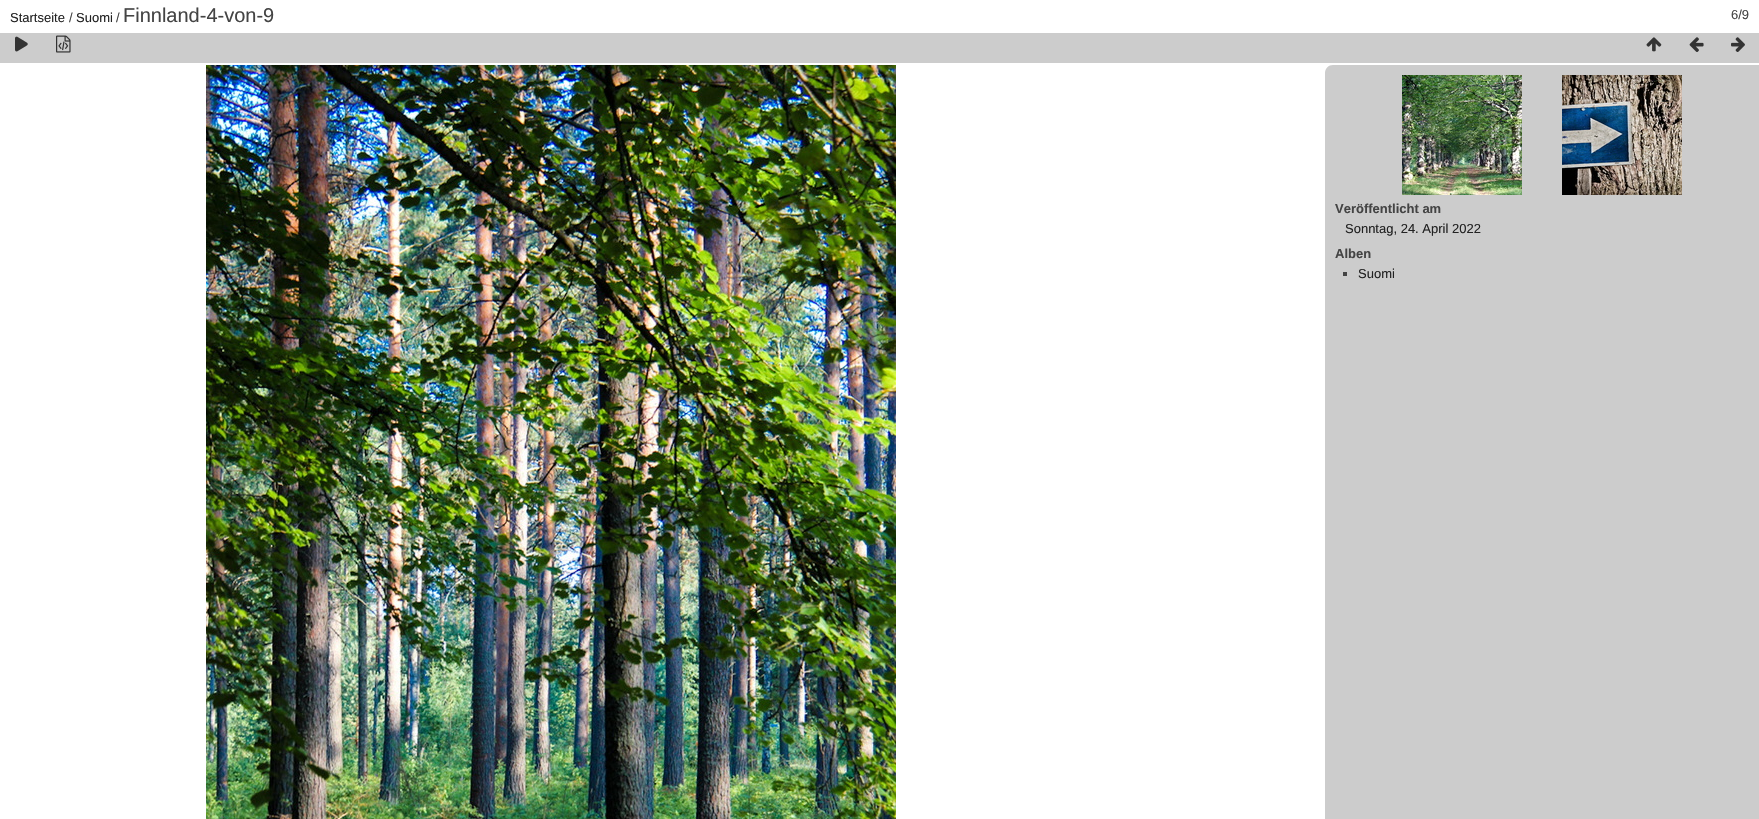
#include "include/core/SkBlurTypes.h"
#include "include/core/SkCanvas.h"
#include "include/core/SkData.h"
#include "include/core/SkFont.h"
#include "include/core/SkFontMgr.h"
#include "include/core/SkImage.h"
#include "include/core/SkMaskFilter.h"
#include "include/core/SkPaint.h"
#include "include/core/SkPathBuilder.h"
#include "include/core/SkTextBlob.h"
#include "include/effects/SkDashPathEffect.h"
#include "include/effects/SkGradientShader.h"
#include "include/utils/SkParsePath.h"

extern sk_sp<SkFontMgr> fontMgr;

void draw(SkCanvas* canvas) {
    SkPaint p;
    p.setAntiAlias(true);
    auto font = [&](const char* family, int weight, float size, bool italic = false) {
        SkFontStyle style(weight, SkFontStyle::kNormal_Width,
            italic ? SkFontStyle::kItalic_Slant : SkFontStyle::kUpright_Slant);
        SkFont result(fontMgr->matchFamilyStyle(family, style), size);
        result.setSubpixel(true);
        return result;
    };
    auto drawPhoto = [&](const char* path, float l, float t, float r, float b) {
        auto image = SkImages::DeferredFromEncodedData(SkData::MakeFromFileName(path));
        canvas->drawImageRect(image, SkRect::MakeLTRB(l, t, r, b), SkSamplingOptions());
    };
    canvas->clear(0xFFFFFFFF);
    auto font1 = font("Liberation Sans", 400, 13);
    p.setColor(0xFF222222);
    canvas->drawString("Startseite", 10, 22, font1, p);
    p.setColor(0xFF444444);
    canvas->drawString("/", 69, 22, font1, p);
    p.setColor(0xFF222222);
    canvas->drawString("Suomi", 76, 22, font1, p);
    p.setColor(0xFF444444);
    canvas->drawString("/", 116, 22, font1, p);
    auto font2 = font("Liberation Sans", 400, 20);
    canvas->drawString("Finnland-4-von-9", 123, 22, font2, p);
    canvas->drawString("6/9", 1731, 19, font1, p);
    p.setColor(0xFFCCCCCC);
    canvas->drawRect(SkRect::MakeLTRB(0, 33, 1759, 63), p);
    drawPhoto("media/1.png", 15, 36, 28, 52);
    drawPhoto("media/2.png", 56, 35, 71, 53);
    drawPhoto("media/3.png", 1646, 37, 1662, 52);
    drawPhoto("media/4.png", 1689, 37, 1704, 52);
    drawPhoto("media/5.png", 1731, 37, 1745, 52);
    drawPhoto("media/6.png", 206, 65, 896, 819);
    canvas->drawPath(SkPathBuilder().moveTo(1333, 65).lineTo(1759, 65).lineTo(1759, 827).lineTo(1333, 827).cubicTo(1328.5f, 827, 1325, 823.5f, 1325, 819).lineTo(1325, 73).cubicTo(1325, 68.5f, 1328.5f, 65, 1333, 65).close().detach(), p);
    drawPhoto("media/7.png", 1402, 75, 1522, 195);
    drawPhoto("media/8.png", 1562, 75, 1682, 195);
    auto font3 = font("Liberation Sans", 700, 13);
    p.setColor(0xFF444444);
    canvas->drawString("Veröffentlicht am", 1335, 213, font3, p);
    p.setColor(0xFF222222);
    canvas->drawString("Sonntag, 24. April 2022", 1345, 233, font1, p);
    p.setColor(0xFF444444);
    canvas->drawString("Alben", 1335, 258, font3, p);
    canvas->drawRect(SkRect::MakeLTRB(1343, 272, 1347, 276), p);
    p.setColor(0xFF222222);
    canvas->drawString("Suomi", 1358, 278, font1, p);
}
